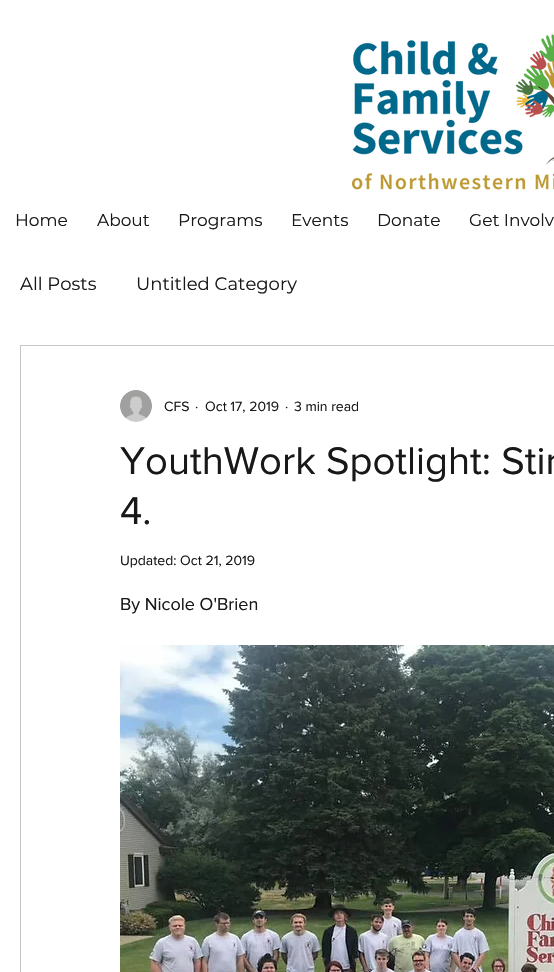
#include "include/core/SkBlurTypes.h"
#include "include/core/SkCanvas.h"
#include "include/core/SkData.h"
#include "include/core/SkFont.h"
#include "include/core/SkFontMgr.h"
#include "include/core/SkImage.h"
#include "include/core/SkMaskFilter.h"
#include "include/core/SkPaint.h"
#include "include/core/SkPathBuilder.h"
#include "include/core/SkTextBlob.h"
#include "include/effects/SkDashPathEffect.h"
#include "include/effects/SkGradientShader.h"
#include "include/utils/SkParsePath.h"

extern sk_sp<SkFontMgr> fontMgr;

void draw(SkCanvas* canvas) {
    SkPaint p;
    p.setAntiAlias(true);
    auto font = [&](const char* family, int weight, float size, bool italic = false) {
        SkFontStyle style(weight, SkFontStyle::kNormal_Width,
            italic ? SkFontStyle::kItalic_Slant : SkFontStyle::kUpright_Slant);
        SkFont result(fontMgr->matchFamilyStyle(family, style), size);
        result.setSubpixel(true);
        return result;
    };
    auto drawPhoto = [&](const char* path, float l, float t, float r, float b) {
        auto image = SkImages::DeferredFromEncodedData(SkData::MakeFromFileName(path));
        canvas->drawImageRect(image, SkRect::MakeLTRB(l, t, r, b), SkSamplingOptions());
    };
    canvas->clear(0xFFFFFFFF);
    drawPhoto("media/1.png", 352, 34, 554, 190);
    auto font1 = font("Montserrat", 400, 17);
    p.setColor(0xFF181818);
    {
        const struct { const char* s; float x, y; } items[] = {
            {"Home", 15, 226},
            {"About", 97, 226},
            {"Programs", 178, 226},
            {"Events", 291, 226},
            {"Donate", 377, 226},
            {"Get Involv", 469, 226},
        };
        for (auto [s, x, y] : items) {
            canvas->drawString(s, x, y, font1, p);
        }
    }
    auto font2 = font("Montserrat", 400, 18);
    canvas->drawString("All Posts", 20, 290, font2, p);
    canvas->drawString("Untitled Category", 136, 290, font2, p);
    p.setStyle(SkPaint::kStroke_Style);
    p.setStrokeWidth(1);
    p.setColor(0xFFC5C5C5);
    canvas->drawRect(SkRect::MakeLTRB(20.5f, 345.5f, 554.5f, 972.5f), p);
    drawPhoto("media/2.png", 120, 390, 152, 422);
    auto font3 = font("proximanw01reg", 400, 14);
    p.setStyle(SkPaint::kFill_Style);
    p.setColor(0xFF181818);
    {
        const struct { const char* s; float x, y; } items[] = {
            {"CFS", 164, 411},
            {"·", 195, 411},
            {"Oct 17, 2019", 205, 411},
            {"·", 285, 411},
            {"3 min read", 294, 411},
        };
        for (auto [s, x, y] : items) {
            canvas->drawString(s, x, y, font3, p);
        }
    }
    auto font4 = font("proximanw01reg", 400, 40);
    canvas->drawString("YouthWork Spotlight: Stir", 120, 474, font4, p);
    canvas->drawString("4.", 120, 524, font4, p);
    canvas->drawString("Updated: Oct 21, 2019", 120, 565, font3, p);
    auto font5 = font("proximanw01reg", 400, 18);
    canvas->drawString("By Nicole O'Brien", 120, 610, font5, p);
    drawPhoto("media/3.png", 120, 645, 554, 972);
}
